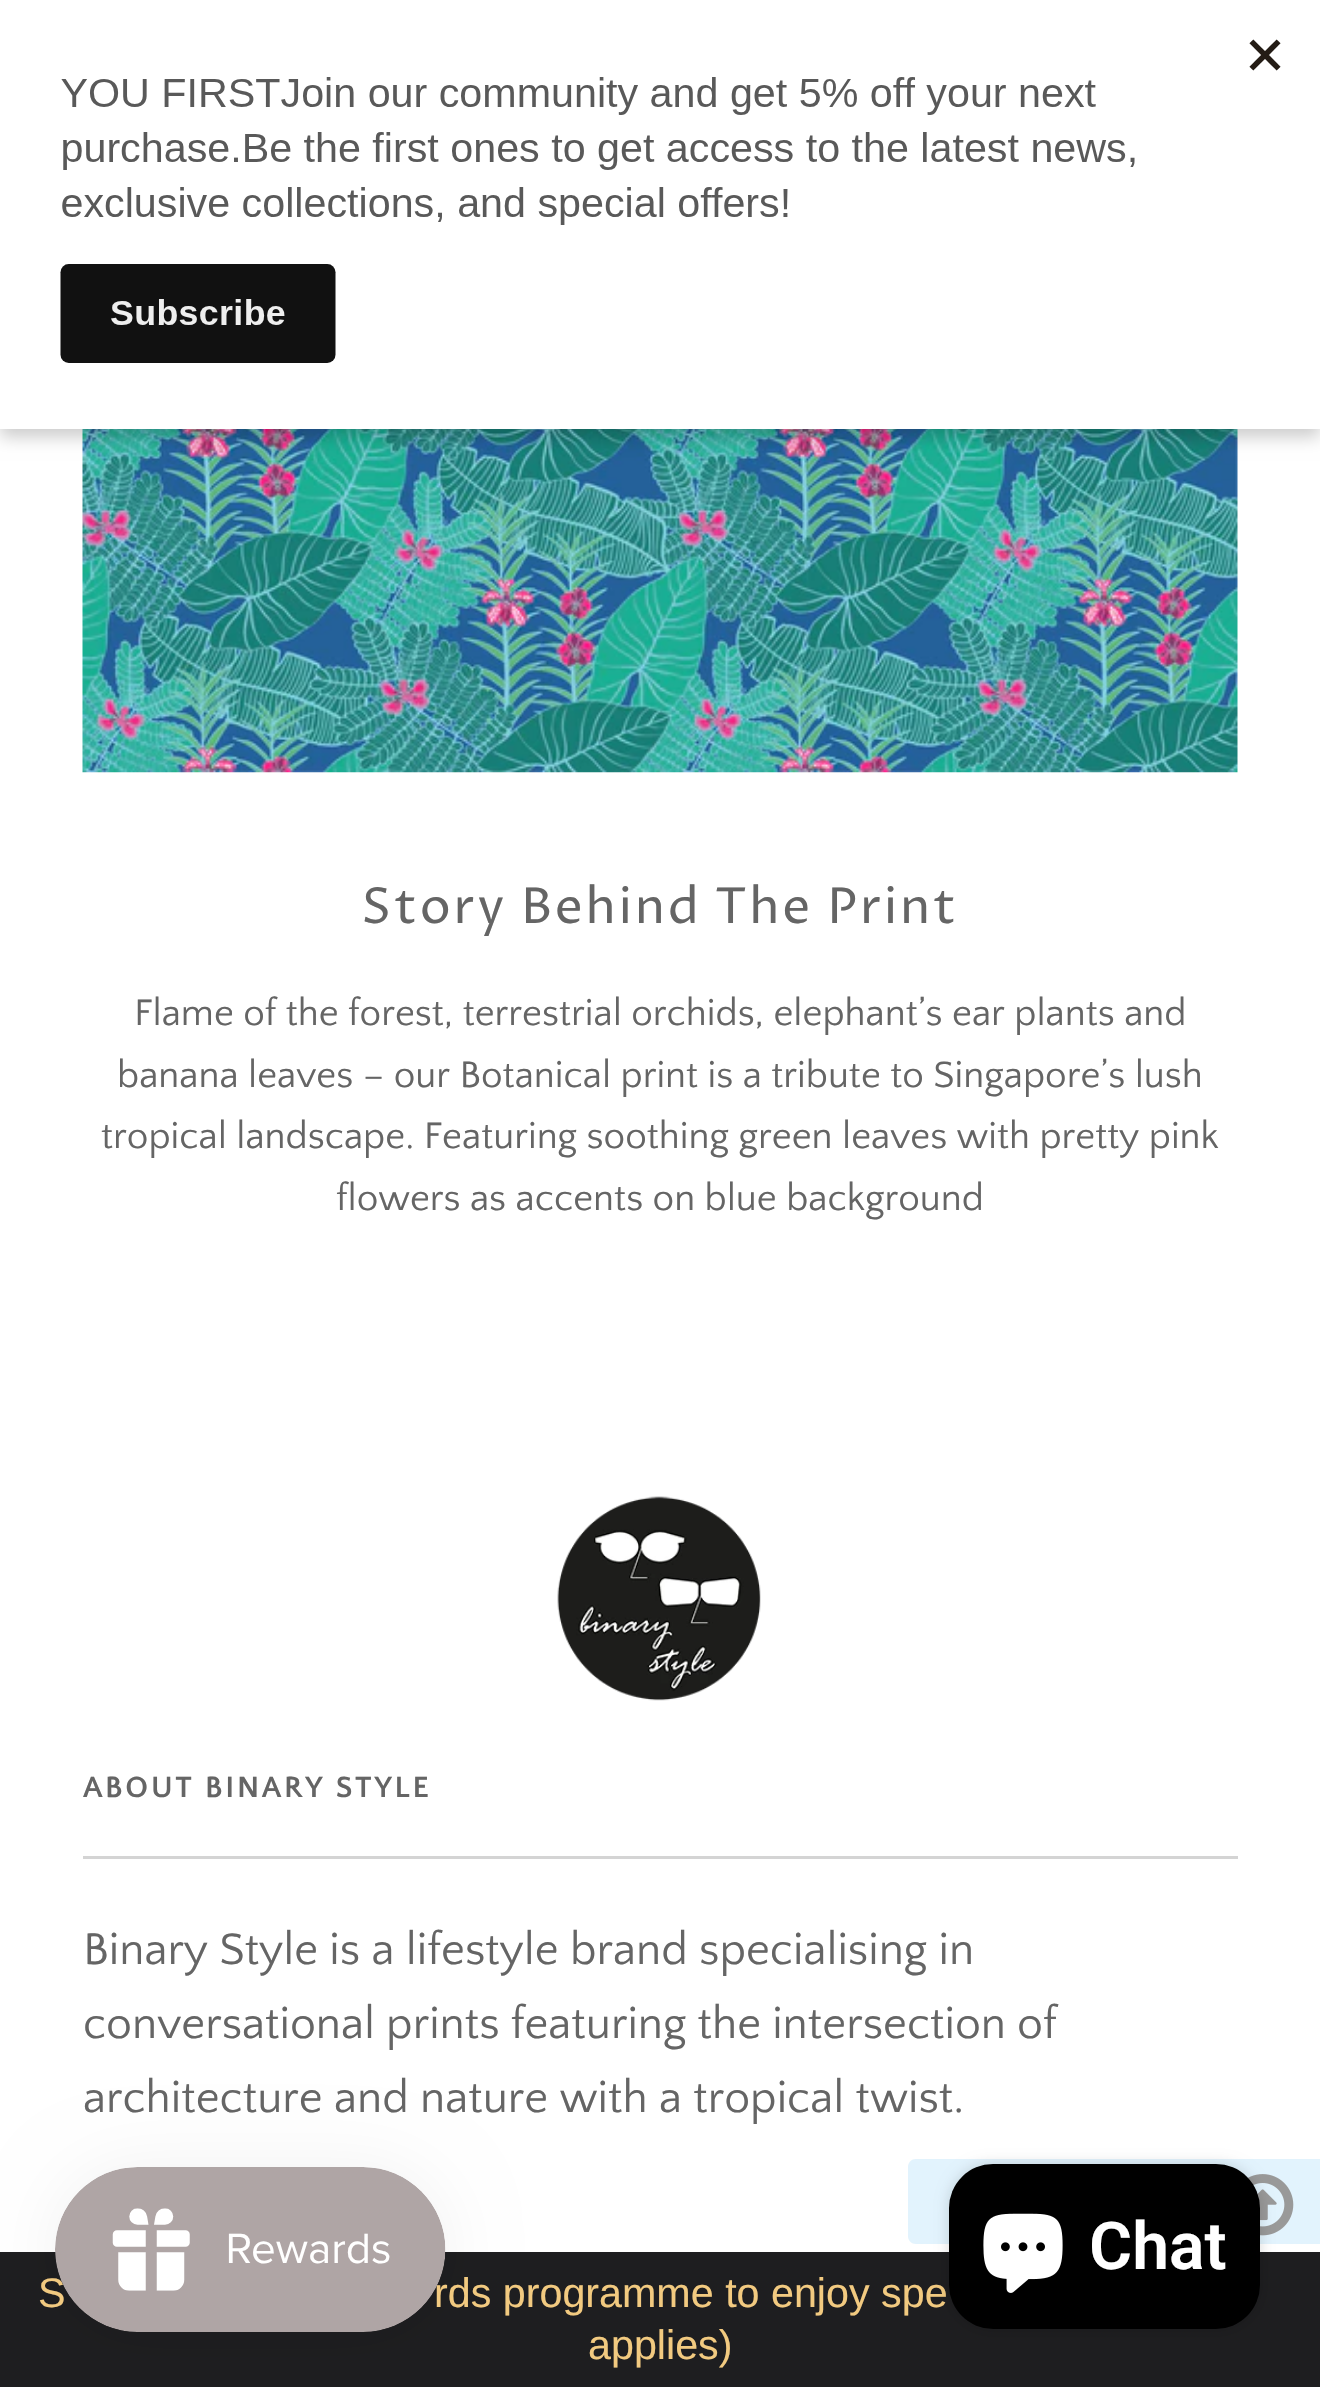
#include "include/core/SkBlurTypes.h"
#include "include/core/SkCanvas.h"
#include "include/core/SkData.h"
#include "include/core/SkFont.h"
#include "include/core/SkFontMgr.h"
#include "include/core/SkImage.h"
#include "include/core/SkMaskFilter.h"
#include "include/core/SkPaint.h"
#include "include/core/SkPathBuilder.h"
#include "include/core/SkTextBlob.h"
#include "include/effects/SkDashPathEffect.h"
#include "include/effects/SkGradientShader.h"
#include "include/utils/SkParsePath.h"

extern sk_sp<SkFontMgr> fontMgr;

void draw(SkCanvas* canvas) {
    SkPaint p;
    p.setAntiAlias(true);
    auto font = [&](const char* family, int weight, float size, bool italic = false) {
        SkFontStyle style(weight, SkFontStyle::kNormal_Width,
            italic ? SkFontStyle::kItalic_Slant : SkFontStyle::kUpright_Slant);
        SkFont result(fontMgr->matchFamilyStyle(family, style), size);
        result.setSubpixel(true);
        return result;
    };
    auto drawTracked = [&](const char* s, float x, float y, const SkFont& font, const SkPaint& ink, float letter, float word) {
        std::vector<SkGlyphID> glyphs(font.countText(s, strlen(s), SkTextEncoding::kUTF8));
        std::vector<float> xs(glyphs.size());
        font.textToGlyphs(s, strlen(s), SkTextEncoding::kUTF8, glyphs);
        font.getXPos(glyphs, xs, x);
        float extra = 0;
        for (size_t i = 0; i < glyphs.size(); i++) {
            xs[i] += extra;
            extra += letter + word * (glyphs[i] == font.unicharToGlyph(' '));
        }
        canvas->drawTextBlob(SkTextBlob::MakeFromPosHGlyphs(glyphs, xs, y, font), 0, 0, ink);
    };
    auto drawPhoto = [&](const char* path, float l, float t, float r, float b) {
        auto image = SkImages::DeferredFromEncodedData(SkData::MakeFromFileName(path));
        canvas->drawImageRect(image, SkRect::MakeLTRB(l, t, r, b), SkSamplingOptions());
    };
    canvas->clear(0xFFFFFFFF);
    drawPhoto("media/2.png", 82, 429, 1238, 773);
    p.setColor(0x33000000);
    p.setMaskFilter(SkMaskFilter::MakeBlur(kNormal_SkBlurStyle, 8));
    canvas->drawRect(SkRect::MakeLTRB(0, 8, 1320, 437), p);
    p.setMaskFilter(nullptr);
    p.setColor(0xFFFFFFFF);
    canvas->drawRect(SkRect::MakeLTRB(0, 0, 1320, 429), p);
    drawPhoto("media/1.png", 60, 39, 1281, 363);
    auto font1 = font("Proza Libre", 400, 49.5f);
    p.setColor(0xFF656565);
    drawTracked("Story Behind The Print", 361, 923, font1, p, 2.75f, 0);
    auto font2 = font("Quattrocento Sans", 400, 38.5f);
    {
        const struct { const char* s; float x, y; } items[] = {
            {"Flame of the forest, terrestrial orchids, elephant’s ear plants and", 134, 1025},
            {"banana leaves – our Botanical print is a tribute to Singapore’s lush", 117, 1087},
            {"tropical landscape. Featuring soothing green leaves with pretty pink", 101, 1148},
            {"flowers as accents on blue background", 336, 1210},
        };
        for (auto [s, x, y] : items) {
            canvas->drawString(s, x, y, font2, p);
        }
    }
    drawPhoto("media/3.png", 557, 1496, 761, 1701);
    auto font3 = font("Quattrocento Sans", 700, 30.75f);
    drawTracked("ABOUT BINARY STYLE", 83, 1797, font3, p, 2.75f, 0);
    p.setColor(0xFFD4D4D4);
    canvas->drawRect(SkRect::MakeLTRB(83, 1856, 1238, 1859), p);
    auto font4 = font("Quattrocento Sans", 400, 46.2f);
    p.setColor(0xFF656565);
    canvas->drawString("Binary Style is a lifestyle brand specialising in", 83, 1964, font4, p);
    drawTracked("conversational prints featuring the intersection of", 83, 2038, font4, p, 0, -0.25f);
    canvas->drawString("architecture and nature with a tropical twist.", 83, 2112, font4, p);
    p.setColor(0xFF1E1E20);
    canvas->drawRect(SkRect::MakeLTRB(0, 2252, 1320, 2387), p);
    p.setColor(0x0D000000);
    p.setMaskFilter(SkMaskFilter::MakeBlur(kNormal_SkBlurStyle, 34.5f));
    canvas->drawRoundRect(SkRect::MakeLTRB(55, 2167, 446, 2332), 82.5f, 82.5f, p);
    p.setMaskFilter(nullptr);
    auto font5 = font("Liberation Sans", 400, 41.25f);
    p.setColor(0xFFF2CA80);
    canvas->drawString("S", 38, 2307, font5, p);
    canvas->drawString("rds programme to enjoy spe", 434, 2307, font5, p);
    drawPhoto("media/4.png", 55, 2167, 446, 2332);
    p.setColor(0xFFE2F3FD);
    canvas->drawPath(SkPathBuilder().moveTo(916, 2159).lineTo(1320, 2159).lineTo(1320, 2244).lineTo(916, 2244).cubicTo(911.5f, 2244, 908, 2240.5f, 908, 2236).lineTo(908, 2167).cubicTo(908, 2162.5f, 911.5f, 2159, 916, 2159).close().detach(), p);
    drawPhoto("media/5.png", 1247, 2174, 1294, 2236);
    p.setColor(0x26000000);
    p.setMaskFilter(SkMaskFilter::MakeBlur(kNormal_SkBlurStyle, 7));
    canvas->drawRoundRect(SkRect::MakeLTRB(949, 2164, 1260, 2329), 44, 44, p);
    p.setMaskFilter(nullptr);
    p.setColor(0xFF000000);
    canvas->drawRoundRect(SkRect::MakeLTRB(949, 2164, 1260, 2329), 44, 44, p);
    drawPhoto("media/6.png", 983, 2213, 1063, 2293);
    auto font6 = font("Roboto", 600, 66);
    p.setColor(0xFFFFFFFF);
    canvas->drawString("Chat", 1089, 2269, font6, p);
    p.setColor(0xFFF2CA80);
    canvas->drawString("applies)", 588, 2359, font5, p);
}
